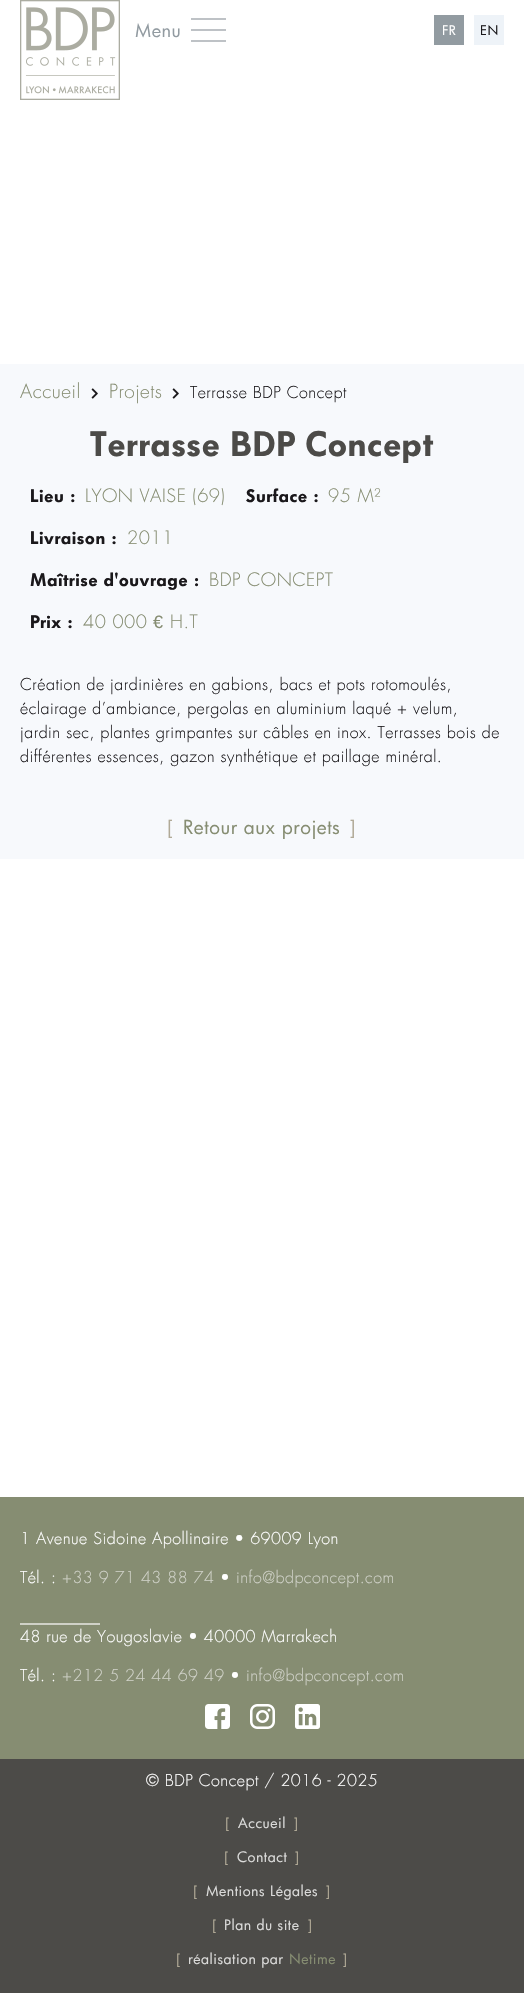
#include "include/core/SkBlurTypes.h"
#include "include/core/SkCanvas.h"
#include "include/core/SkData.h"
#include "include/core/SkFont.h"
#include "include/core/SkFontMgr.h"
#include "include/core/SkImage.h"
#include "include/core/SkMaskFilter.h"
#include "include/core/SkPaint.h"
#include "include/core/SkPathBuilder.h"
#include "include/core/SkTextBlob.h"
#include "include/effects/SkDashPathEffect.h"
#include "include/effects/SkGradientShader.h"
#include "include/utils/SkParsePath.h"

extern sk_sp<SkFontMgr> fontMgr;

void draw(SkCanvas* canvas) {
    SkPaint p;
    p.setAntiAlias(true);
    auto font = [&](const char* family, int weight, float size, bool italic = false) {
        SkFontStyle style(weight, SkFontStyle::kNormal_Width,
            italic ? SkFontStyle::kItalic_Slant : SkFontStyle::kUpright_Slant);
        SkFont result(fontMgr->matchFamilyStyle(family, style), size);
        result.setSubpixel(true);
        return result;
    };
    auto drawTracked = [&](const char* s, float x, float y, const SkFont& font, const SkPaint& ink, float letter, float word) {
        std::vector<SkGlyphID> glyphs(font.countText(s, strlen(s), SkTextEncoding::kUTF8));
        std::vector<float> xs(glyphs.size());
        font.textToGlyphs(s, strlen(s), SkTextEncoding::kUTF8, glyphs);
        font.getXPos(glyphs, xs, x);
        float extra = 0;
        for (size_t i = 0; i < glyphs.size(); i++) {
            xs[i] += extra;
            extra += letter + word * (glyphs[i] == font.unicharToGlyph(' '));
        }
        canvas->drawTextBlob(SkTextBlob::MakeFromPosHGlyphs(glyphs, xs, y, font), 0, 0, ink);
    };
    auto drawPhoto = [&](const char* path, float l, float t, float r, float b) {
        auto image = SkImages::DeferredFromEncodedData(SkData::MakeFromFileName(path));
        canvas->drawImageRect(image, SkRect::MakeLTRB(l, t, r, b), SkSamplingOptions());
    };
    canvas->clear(0xFFFFFFFF);
    drawPhoto("media/1.png", 20, 0, 120, 100);
    auto font1 = font("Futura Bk", 400, 18);
    p.setColor(0xFF929BA1);
    drawTracked("Menu", 135, 37, font1, p, 0.5f, 0);
    {
        const struct { float l, t, r, b; SkColor color; } items[] = {
            {191, 18, 226, 20, 0xFFBEC2C6},
            {191, 29, 226, 31, 0xFFBEC2C6},
            {191, 40, 226, 42, 0xFFBEC2C6},
            {434, 15, 464, 45, 0xFF929BA1},
        };
        for (auto [l, t, r, b, color] : items) {
            p.setColor(color);
            canvas->drawRect(SkRect::MakeLTRB(l, t, r, b), p);
        }
    }
    auto font2 = font("Futura Bk", 400, 13);
    p.setColor(0xFFFFFFFF);
    drawTracked("FR", 442, 35, font2, p, 0.5f, 0);
    p.setColor(0xFFEEF3F8);
    canvas->drawRect(SkRect::MakeLTRB(474, 15, 504, 45), p);
    p.setColor(0xFF1A181B);
    drawTracked("EN", 480, 35, font2, p, 0.5f, 0);
    p.setColor(0xFFF7F9FC);
    canvas->drawRect(SkRect::MakeLTRB(0, 364, 524, 859), p);
    auto font3 = font("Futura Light", 300, 19);
    p.setColor(0xFF868D72);
    drawTracked("Accueil", 20, 398, font3, p, 0.5f, 0);
    drawPhoto("media/2.png", 91, 388, 98, 399);
    drawTracked("Projets", 109, 398, font3, p, 0.5f, 0);
    drawPhoto("media/2.png", 172, 388, 179, 399);
    auto font4 = font("Futura Light", 300, 16);
    p.setColor(0xFF1A181B);
    drawTracked("Terrasse BDP Concept", 190, 398, font4, p, 0.5f, 0);
    auto font5 = font("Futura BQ", 600, 35);
    p.setColor(0xFF4C4B48);
    drawTracked("Terrasse BDP Concept", 90, 456, font5, p, 0.5f, 0);
    auto font6 = font("Futura BQ", 600, 18);
    p.setColor(0xFF1A181B);
    drawTracked("Lieu :", 30, 502, font6, p, 0.5f, 0);
    auto font7 = font("Futura Light", 300, 18);
    p.setColor(0xFF868D72);
    drawTracked("LYON VAISE (69)", 85, 502, font7, p, 0.5f, 0);
    p.setColor(0xFF1A181B);
    drawTracked("Surface :", 246, 502, font6, p, 0.5f, 0);
    p.setColor(0xFF868D72);
    drawTracked("95 M²", 328, 502, font7, p, 0.5f, 0);
    p.setColor(0xFF1A181B);
    drawTracked("Livraison :", 30, 544, font6, p, 0.5f, 0);
    p.setColor(0xFF868D72);
    drawTracked("2011", 127, 544, font7, p, 0.5f, 0);
    p.setColor(0xFF1A181B);
    drawTracked("Maîtrise d'ouvrage :", 30, 586, font6, p, 0.5f, 0);
    p.setColor(0xFF868D72);
    drawTracked("BDP CONCEPT", 209, 586, font7, p, 0.5f, 0);
    p.setColor(0xFF1A181B);
    drawTracked("Prix :", 30, 628, font6, p, 0.5f, 0);
    p.setColor(0xFF868D72);
    drawTracked("40 000", 83, 628, font7, p, 0.5f, 0);
    auto font8 = font("Liberation Sans", 400, 18);
    drawTracked("€", 153, 628, font8, p, 0.5f, 0);
    drawTracked("H.T", 170, 628, font7, p, 0.5f, 0);
    p.setColor(0xFF1A181B);
    {
        const struct { const char* s; float x, y; } items[] = {
            {"Création de jardinières en gabions, bacs et pots rotomoulés,", 20, 690},
            {"éclairage d’ambiance, pergolas en aluminium laqué + velum,", 20, 714},
            {"jardin sec, plantes grimpantes sur câbles en inox. Terrasses bois de", 20, 738},
            {"différentes essences, gazon synthétique et paillage minéral.", 20, 762},
        };
        for (auto [s, x, y] : items) {
            drawTracked(s, x, y, font4, p, 0.5f, 0);
        }
    }
    auto font9 = font("Futura Bk", 400, 19);
    p.setColor(0xFFB1AA97);
    drawTracked("[", 167, 834, font9, p, 0.5f, 0);
    p.setColor(0xFF868D72);
    drawTracked("Retour aux projets", 183, 834, font9, p, 0.5f, 0);
    p.setColor(0xFFB1AA97);
    drawTracked("]", 350, 834, font9, p, 0.5f, 0);
    p.setColor(0xFF868D72);
    canvas->drawRect(SkRect::MakeLTRB(0, 1497, 524, 1759), p);
    p.setColor(0xFFFFFFFF);
    drawTracked("1 Avenue Sidoine Apollinaire • 69009 Lyon", 20, 1544, font4, p, 0.5f, 0);
    drawTracked("Tél. :", 20, 1583, font4, p, 0.5f, 0);
    p.setColor(0xFFCFD1C7);
    drawTracked("+33 9 71 43 88 74", 62, 1583, font4, p, 0.5f, 0);
    p.setColor(0xFFFFFFFF);
    drawTracked("•", 220, 1583, font4, p, 0.5f, 0);
    p.setColor(0xFFCFD1C7);
    drawTracked("info@bdpconcept.com", 236, 1583, font4, p, 0.5f, 0);
    canvas->drawRect(SkRect::MakeLTRB(20, 1623, 100, 1625), p);
    p.setColor(0xFFFFFFFF);
    drawTracked("48 rue de Yougoslavie • 40000 Marrakech", 20, 1642, font4, p, 0.5f, 0);
    drawTracked("Tél. :", 20, 1681, font4, p, 0.5f, 0);
    p.setColor(0xFFCFD1C7);
    drawTracked("+212 5 24 44 69 49", 62, 1681, font4, p, 0.5f, 0);
    p.setColor(0xFFFFFFFF);
    drawTracked("•", 230, 1681, font4, p, 0.5f, 0);
    p.setColor(0xFFCFD1C7);
    drawTracked("info@bdpconcept.com", 246, 1681, font4, p, 0.5f, 0);
    drawPhoto("media/3.png", 205, 1704, 230, 1729);
    drawPhoto("media/4.png", 250, 1704, 275, 1729);
    drawPhoto("media/5.png", 295, 1704, 320, 1729);
    p.setColor(0xFF4C4B48);
    canvas->drawRect(SkRect::MakeLTRB(0, 1759, 524, 1993), p);
    p.setColor(0xFFFFFFFF);
    drawTracked("© BDP Concept / 2016 - 2025", 146, 1786, font4, p, 0.5f, 0);
    auto font10 = font("Futura Bk", 400, 14);
    p.setColor(0xFFB1AA97);
    drawTracked("[", 225, 1828, font10, p, 0.5f, 0);
    p.setColor(0xFFDBDBDA);
    drawTracked("Accueil", 238, 1828, font10, p, 0.5f, 0);
    p.setColor(0xFFB1AA97);
    drawTracked("]", 294, 1828, font10, p, 0.5f, 0);
    drawTracked("[", 224, 1862, font10, p, 0.5f, 0);
    p.setColor(0xFFDBDBDA);
    drawTracked("Contact", 237, 1862, font10, p, 0.5f, 0);
    p.setColor(0xFFB1AA97);
    drawTracked("]", 295, 1862, font10, p, 0.5f, 0);
    drawTracked("[", 193, 1896, font10, p, 0.5f, 0);
    p.setColor(0xFFDBDBDA);
    drawTracked("Mentions Légales", 206, 1896, font10, p, 0.5f, 0);
    p.setColor(0xFFB1AA97);
    drawTracked("]", 326, 1896, font10, p, 0.5f, 0);
    drawTracked("[", 212, 1930, font10, p, 0.5f, 0);
    p.setColor(0xFFDBDBDA);
    drawTracked("Plan du site", 224, 1930, font10, p, 0.5f, 0);
    p.setColor(0xFFB1AA97);
    drawTracked("]", 308, 1930, font10, p, 0.5f, 0);
    drawTracked("[", 176, 1964, font10, p, 0.5f, 0);
    p.setColor(0xFFDBDBDA);
    drawTracked("réalisation par", 188, 1964, font10, p, 0.5f, 0);
    p.setColor(0xFF868D72);
    drawTracked("Netime", 289, 1964, font10, p, 0.5f, 0);
    p.setColor(0xFFB1AA97);
    drawTracked("]", 343, 1964, font10, p, 0.5f, 0);
}
